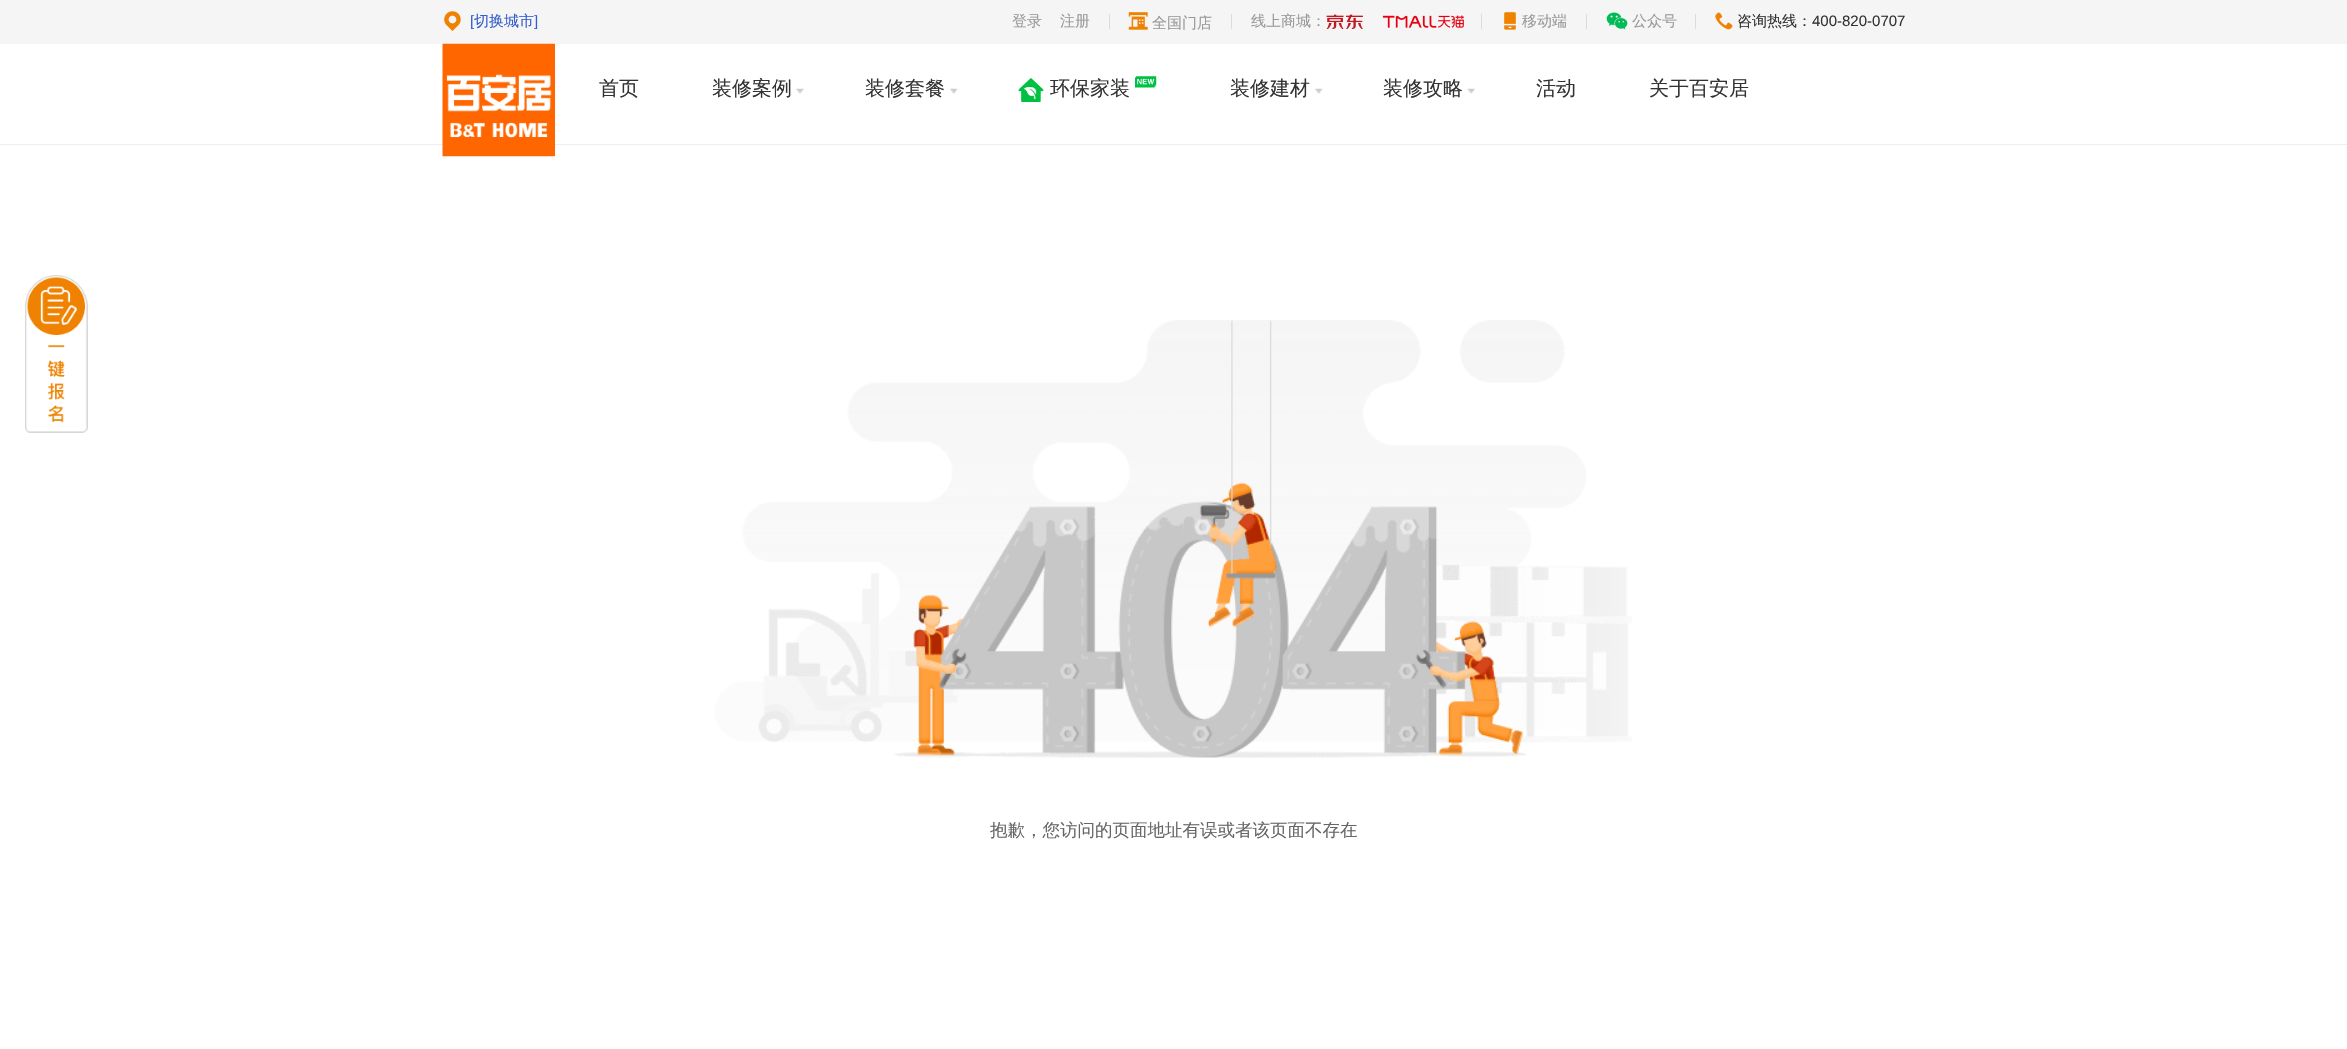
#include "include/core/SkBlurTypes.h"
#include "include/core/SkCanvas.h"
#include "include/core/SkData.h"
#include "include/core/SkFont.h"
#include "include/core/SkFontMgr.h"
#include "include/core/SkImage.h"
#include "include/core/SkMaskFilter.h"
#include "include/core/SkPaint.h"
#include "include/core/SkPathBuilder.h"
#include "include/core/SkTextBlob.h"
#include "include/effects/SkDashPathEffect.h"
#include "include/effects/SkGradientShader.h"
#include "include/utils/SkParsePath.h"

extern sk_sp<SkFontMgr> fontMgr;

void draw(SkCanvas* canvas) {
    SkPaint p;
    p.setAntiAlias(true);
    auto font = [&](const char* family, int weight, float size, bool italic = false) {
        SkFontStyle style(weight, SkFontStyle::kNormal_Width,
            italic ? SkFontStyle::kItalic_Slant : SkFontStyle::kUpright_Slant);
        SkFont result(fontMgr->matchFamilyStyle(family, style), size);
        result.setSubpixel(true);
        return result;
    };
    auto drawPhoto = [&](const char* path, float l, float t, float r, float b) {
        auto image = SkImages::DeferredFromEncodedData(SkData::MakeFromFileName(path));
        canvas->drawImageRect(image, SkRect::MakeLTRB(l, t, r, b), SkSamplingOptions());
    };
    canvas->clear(0xFFFFFFFF);
    p.setColor(0xFFF5F5F5);
    canvas->drawRect(SkRect::MakeLTRB(0, 0, 2347, 44), p);
    drawPhoto("media/1.png", 444, 11, 461, 31);
    auto font1 = font("Liberation Sans", 400, 15);
    p.setColor(0xFF345ECD);
    canvas->drawString("[", 470, 26, font1, p);
    auto font2 = font("WenQuanYi Zen Hei", 500, 15);
    canvas->drawString("切换城市", 474, 26, font2, p);
    canvas->drawString("]", 534, 26, font1, p);
    p.setColor(0xFF999999);
    canvas->drawString("登录", 1012, 26, font2, p);
    canvas->drawString("注册", 1060, 26, font2, p);
    p.setColor(0xFFDCDCDC);
    canvas->drawRect(SkRect::MakeLTRB(1109, 14, 1110, 29), p);
    drawPhoto("media/2.png", 1128, 12, 1148, 30);
    p.setColor(0xFF999999);
    canvas->drawString("全国门店", 1152, 28, font2, p);
    p.setColor(0xFFDCDCDC);
    canvas->drawRect(SkRect::MakeLTRB(1231, 14, 1232, 29), p);
    p.setColor(0xFF999999);
    canvas->drawString("线上商城：", 1251, 26, font2, p);
    drawPhoto("media/3.png", 1326, 14, 1363, 29);
    drawPhoto("media/4.png", 1382, 15, 1464, 28);
    p.setColor(0xFFDCDCDC);
    canvas->drawRect(SkRect::MakeLTRB(1481, 14, 1482, 29), p);
    drawPhoto("media/5.png", 1504, 12, 1516, 30);
    p.setColor(0xFF999999);
    canvas->drawString("移动端", 1522, 26, font2, p);
    p.setColor(0xFFDCDCDC);
    canvas->drawRect(SkRect::MakeLTRB(1586, 14, 1587, 29), p);
    drawPhoto("media/6.png", 1606, 12, 1628, 30);
    p.setColor(0xFF999999);
    canvas->drawString("公众号", 1632, 26, font2, p);
    p.setColor(0xFFDCDCDC);
    canvas->drawRect(SkRect::MakeLTRB(1695, 14, 1696, 29), p);
    drawPhoto("media/7.png", 1715, 12, 1733, 30);
    p.setColor(0xFF333333);
    canvas->drawString("咨询热线：", 1737, 26, font2, p);
    canvas->drawString("400-820-0707", 1812, 26, font1, p);
    p.setColor(0xFFEEEEEE);
    canvas->drawRect(SkRect::MakeLTRB(0, 144, 2347, 145), p);
    drawPhoto("media/8.png", 442, 43, 555, 157);
    auto font3 = font("WenQuanYi Zen Hei", 500, 20);
    p.setColor(0xFF333333);
    canvas->drawString("首页", 599, 95, font3, p);
    canvas->drawString("装修案例", 712, 95, font3, p);
    drawPhoto("media/9.png", 796, 88, 804, 94);
    canvas->drawString("装修套餐", 865, 95, font3, p);
    drawPhoto("media/10.png", 950, 88, 958, 94);
    drawPhoto("media/11.png", 1018, 78, 1044, 102);
    canvas->drawString("环保家装", 1050, 95, font3, p);
    drawPhoto("media/12.png", 1135, 76, 1157, 88);
    canvas->drawString("装修建材", 1230, 95, font3, p);
    drawPhoto("media/13.png", 1315, 88, 1323, 94);
    canvas->drawString("装修攻略", 1383, 95, font3, p);
    drawPhoto("media/14.png", 1467, 88, 1475, 94);
    canvas->drawString("活动", 1536, 95, font3, p);
    canvas->drawString("关于百安居", 1649, 95, font3, p);
    drawPhoto("media/15.png", 25, 275, 88, 433);
    drawPhoto("media/16.png", 715, 320, 1632, 758);
    auto font4 = font("WenQuanYi Zen Hei", 500, 17.5f);
    p.setColor(0xFF666666);
    canvas->drawString("抱歉，您访问的页面地址有误或者该页面不存在", 990, 836, font4, p);
}
